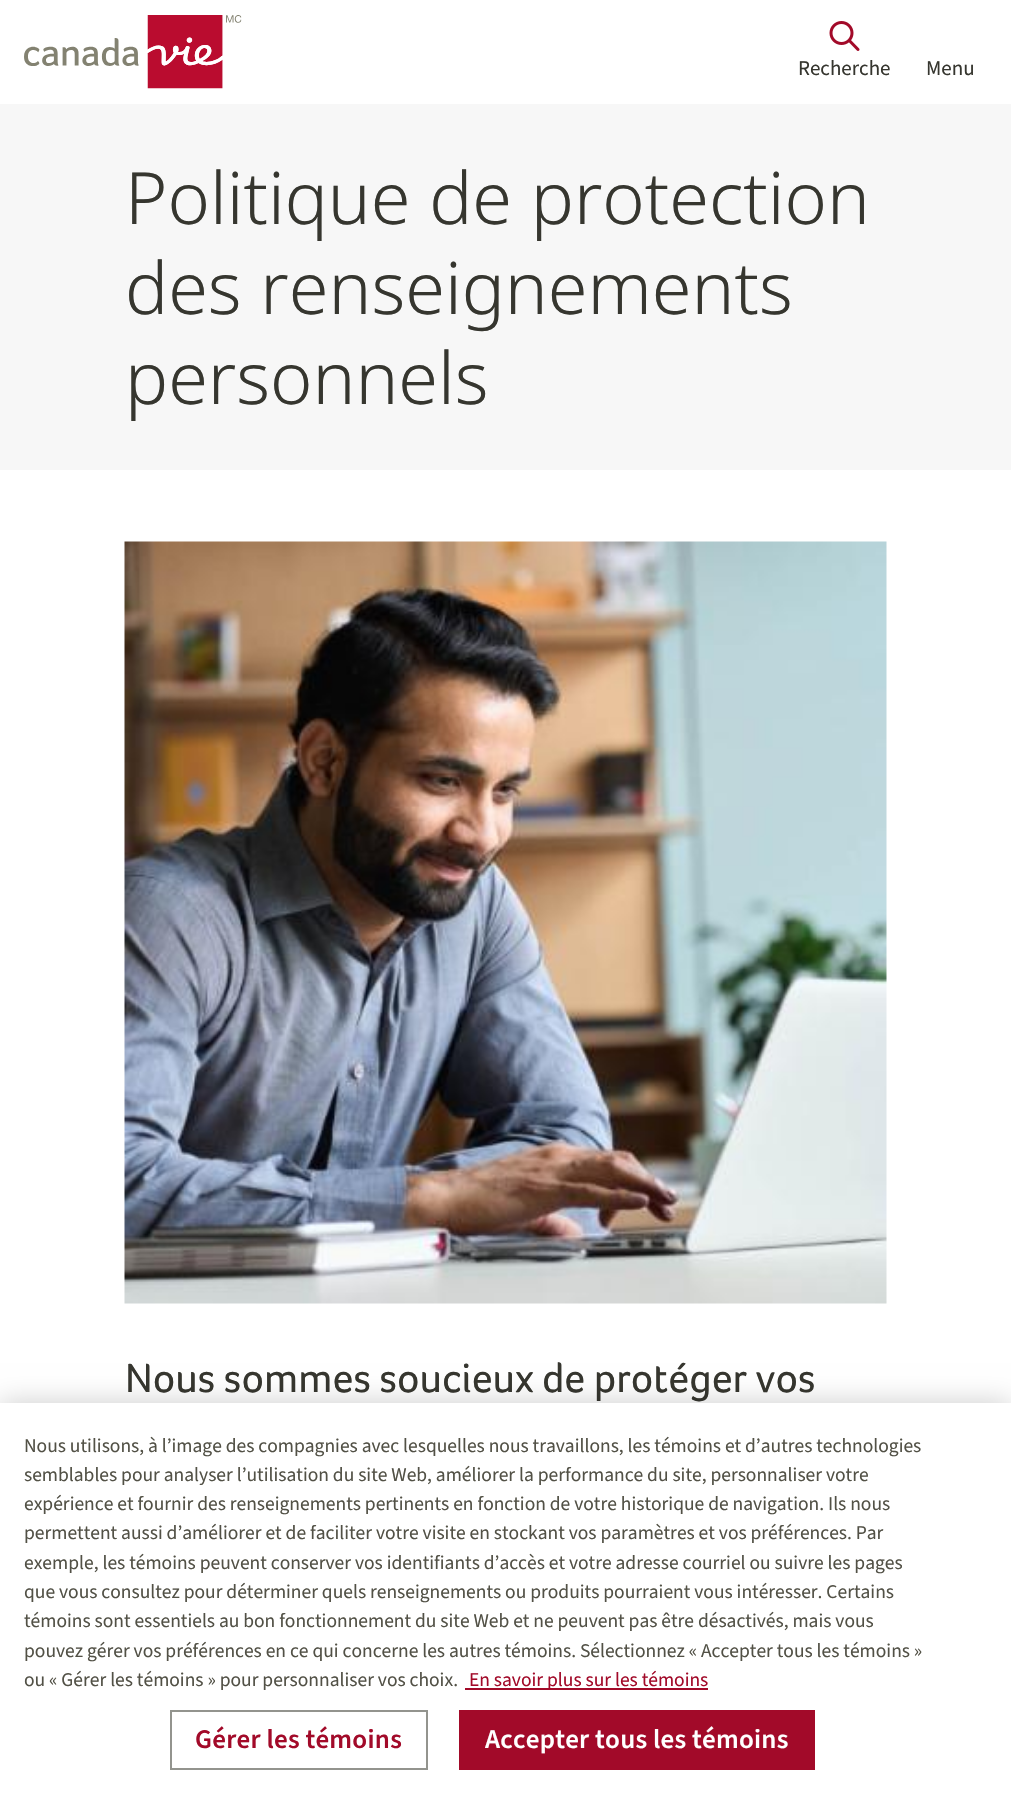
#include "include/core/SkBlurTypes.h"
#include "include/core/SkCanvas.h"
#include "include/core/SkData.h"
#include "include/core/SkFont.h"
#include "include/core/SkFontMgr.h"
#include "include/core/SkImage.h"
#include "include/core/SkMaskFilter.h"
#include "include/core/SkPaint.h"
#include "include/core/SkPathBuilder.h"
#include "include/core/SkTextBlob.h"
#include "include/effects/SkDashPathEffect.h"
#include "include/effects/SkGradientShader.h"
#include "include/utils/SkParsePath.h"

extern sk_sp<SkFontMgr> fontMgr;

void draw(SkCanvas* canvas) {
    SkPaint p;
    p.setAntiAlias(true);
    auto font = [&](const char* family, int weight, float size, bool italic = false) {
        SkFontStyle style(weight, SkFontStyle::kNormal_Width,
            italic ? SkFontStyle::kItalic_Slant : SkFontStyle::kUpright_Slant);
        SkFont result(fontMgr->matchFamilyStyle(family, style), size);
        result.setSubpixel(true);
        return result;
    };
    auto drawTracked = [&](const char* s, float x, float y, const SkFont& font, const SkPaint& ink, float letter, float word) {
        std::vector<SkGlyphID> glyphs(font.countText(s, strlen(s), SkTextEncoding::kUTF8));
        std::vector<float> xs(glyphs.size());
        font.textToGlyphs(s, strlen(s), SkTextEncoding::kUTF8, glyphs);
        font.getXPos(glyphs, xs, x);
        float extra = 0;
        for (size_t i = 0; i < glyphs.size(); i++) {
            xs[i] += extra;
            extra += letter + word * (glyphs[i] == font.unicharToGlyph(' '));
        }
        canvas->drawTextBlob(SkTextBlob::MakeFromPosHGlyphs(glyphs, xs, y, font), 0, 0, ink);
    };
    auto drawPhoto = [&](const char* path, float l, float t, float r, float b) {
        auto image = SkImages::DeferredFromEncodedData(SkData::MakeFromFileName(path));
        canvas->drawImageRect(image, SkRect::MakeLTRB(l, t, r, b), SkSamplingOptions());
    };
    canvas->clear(0xFFFFFFFF);
    drawPhoto("media/1.png", 24, 15, 242, 89);
    drawPhoto("media/2.png", 829, 21, 860, 51);
    auto font1 = font("Source Sans 3", 400, 21);
    p.setColor(0xFF36362F);
    canvas->drawString("Recherche", 798, 75, font1, p);
    canvas->drawString("Menu", 926, 75, font1, p);
    p.setColor(0xFFF7F7F7);
    canvas->drawRect(SkRect::MakeLTRB(0, 104, 1011, 470), p);
    auto font2 = font("Noto Sans", 300, 72);
    p.setColor(0xFF36362F);
    {
        const struct { const char* s; float x, y; } items[] = {
            {"Politique de protection", 125, 224},
            {"des renseignements", 125, 314},
            {"personnels", 125, 404},
        };
        for (auto [s, x, y] : items) {
            canvas->drawString(s, x, y, font2, p);
        }
    }
    drawPhoto("media/3.png", 124, 541, 887, 1304);
    auto font3 = font("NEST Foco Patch", 400, 42);
    canvas->drawString("Nous sommes soucieux de protéger vos", 125, 1392, font3, p);
    p.setColor(0x33000000);
    p.setMaskFilter(SkMaskFilter::MakeBlur(kNormal_SkBlurStyle, 13.5f));
    canvas->drawRect(SkRect::MakeLTRB(0, 1403, 1011, 1794), p);
    p.setMaskFilter(nullptr);
    p.setColor(0xFFFFFFFF);
    canvas->drawRect(SkRect::MakeLTRB(0, 1403, 1011, 1794), p);
    auto font4 = font("Source Sans 3", 400, 19.5f);
    p.setColor(0xFF525146);
    {
        const struct { const char* s; float x, y; } items[] = {
            {"Nous utilisons, à l’image des compagnies avec lesquelles nous travaillons, les témoins et d’autres technologies", 24, 1452},
            {"semblables pour analyser l’utilisation du site Web, améliorer la performance du site, personnaliser votre", 24, 1481},
            {"expérience et fournir des renseignements pertinents en fonction de votre historique de navigation. Ils nous", 24, 1510},
            {"permettent aussi d’améliorer et de faciliter votre visite en stockant vos paramètres et vos préférences. Par", 24, 1539},
            {"exemple, les témoins peuvent conserver vos identifiants d’accès et votre adresse courriel ou suivre les pages", 24, 1569},
            {"que vous consultez pour déterminer quels renseignements ou produits pourraient vous intéresser. Certains", 24, 1598},
            {"témoins sont essentiels au bon fonctionnement du site Web et ne peuvent pas être désactivés, mais vous", 24, 1627},
            {"pouvez gérer vos préférences en ce qui concerne les autres témoins. Sélectionnez « Accepter tous les témoins »", 24, 1657},
            {"ou « Gérer les témoins » pour personnaliser vos choix.", 24, 1686},
        };
        for (auto [s, x, y] : items) {
            canvas->drawString(s, x, y, font4, p);
        }
    }
    p.setColor(0xFFA20A29);
    canvas->drawRect(SkRect::MakeLTRB(465, 1688, 708, 1690), p);
    canvas->drawString("En savoir plus sur les témoins", 469, 1686, font4, p);
    p.setStyle(SkPaint::kStroke_Style);
    p.setStrokeWidth(2);
    p.setColor(0xFF93948E);
    canvas->drawRect(SkRect::MakeLTRB(171, 1711, 427, 1769), p);
    auto font5 = font("Source Sans 3", 600, 27);
    p.setStyle(SkPaint::kFill_Style);
    p.setColor(0xFFA20A29);
    drawTracked("Gérer les témoins", 195, 1748, font5, p, 0.25f, 0);
    canvas->drawRect(SkRect::MakeLTRB(459, 1710, 815, 1770), p);
    p.setColor(0xFFFFFFFF);
    drawTracked("Accepter tous les témoins", 485, 1748, font5, p, 0.25f, 0);
}
